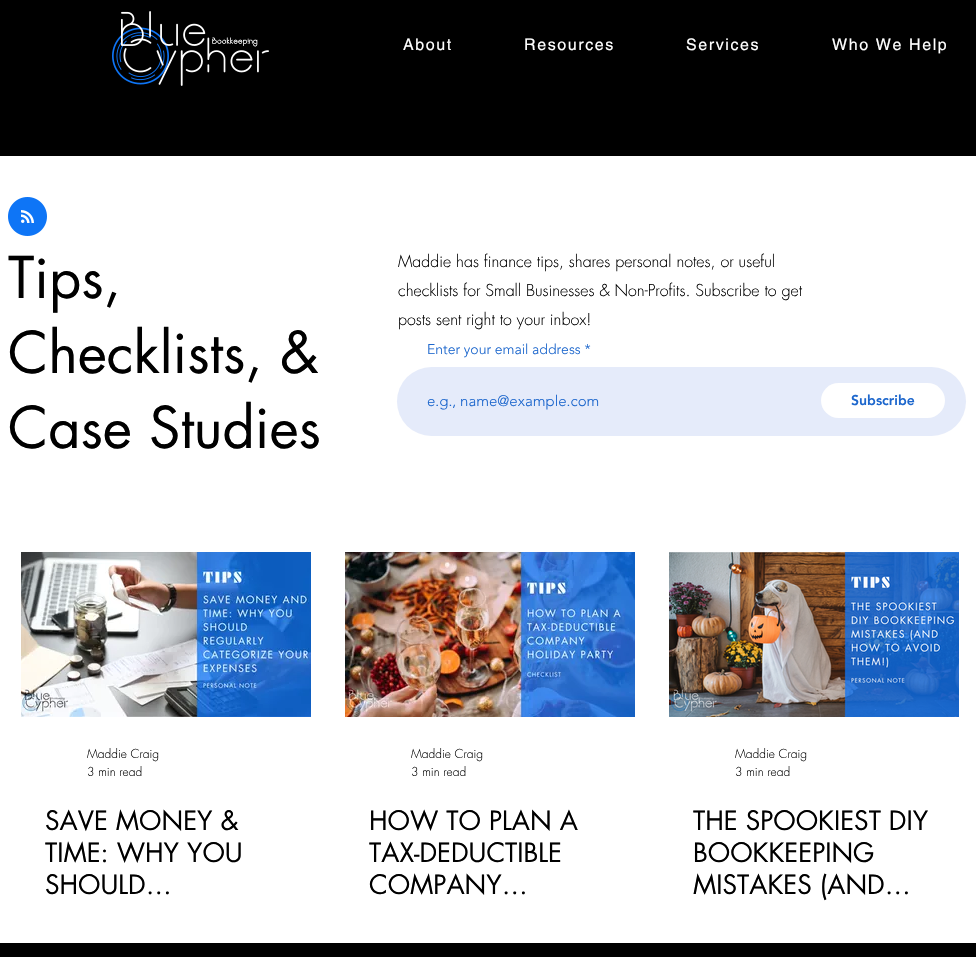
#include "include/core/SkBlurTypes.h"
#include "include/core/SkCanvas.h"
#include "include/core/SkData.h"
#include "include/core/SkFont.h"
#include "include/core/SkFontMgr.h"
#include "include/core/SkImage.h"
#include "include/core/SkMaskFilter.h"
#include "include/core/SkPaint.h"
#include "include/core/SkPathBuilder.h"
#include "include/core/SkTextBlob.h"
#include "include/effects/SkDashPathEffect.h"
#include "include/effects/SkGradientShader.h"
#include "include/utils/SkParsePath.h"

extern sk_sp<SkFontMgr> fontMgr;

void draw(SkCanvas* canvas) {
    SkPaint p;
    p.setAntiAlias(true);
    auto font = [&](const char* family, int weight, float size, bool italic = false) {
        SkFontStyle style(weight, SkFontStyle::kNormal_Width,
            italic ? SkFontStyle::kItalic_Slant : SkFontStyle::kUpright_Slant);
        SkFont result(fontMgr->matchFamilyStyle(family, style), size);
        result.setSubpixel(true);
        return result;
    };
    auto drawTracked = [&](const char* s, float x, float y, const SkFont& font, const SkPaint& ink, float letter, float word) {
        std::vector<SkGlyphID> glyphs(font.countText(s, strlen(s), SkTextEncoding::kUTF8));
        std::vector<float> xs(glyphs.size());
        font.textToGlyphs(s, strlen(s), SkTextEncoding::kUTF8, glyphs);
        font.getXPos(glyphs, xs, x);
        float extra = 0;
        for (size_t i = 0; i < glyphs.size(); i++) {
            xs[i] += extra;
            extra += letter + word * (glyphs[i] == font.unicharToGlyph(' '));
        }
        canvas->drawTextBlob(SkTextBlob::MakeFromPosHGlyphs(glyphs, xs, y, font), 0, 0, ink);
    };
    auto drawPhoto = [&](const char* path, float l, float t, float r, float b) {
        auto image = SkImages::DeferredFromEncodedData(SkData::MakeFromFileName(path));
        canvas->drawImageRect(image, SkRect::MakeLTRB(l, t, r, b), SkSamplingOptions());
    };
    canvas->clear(0xFF000000);
    drawPhoto("media/2.png", 112, 27, 169, 85);
    drawPhoto("media/1.png", 121, 11, 269, 86);
    auto font1 = font("helvetica", 400, 16);
    p.setColor(0xFFFFFFFF);
    {
        const struct { const char* s; float x, y; } items[] = {
            {"About", 403, 50},
            {"Resources", 524, 50},
            {"Services", 686, 50},
            {"Who We Help", 832, 50},
        };
        for (auto [s, x, y] : items) {
            drawTracked(s, x, y, font1, p, 1.6f, 0);
        }
    }
    canvas->drawRect(SkRect::MakeLTRB(0, 156, 976, 943), p);
    drawPhoto("media/3.png", 8, 197, 47, 236);
    auto font2 = font("futura", 400, 56);
    p.setColor(0xFF000000);
    {
        const struct { const char* s; float x, y; } items[] = {
            {"Tips,", 8, 298},
            {"Checklists, &", 8, 373},
            {"Case Studies", 8, 448},
        };
        for (auto [s, x, y] : items) {
            canvas->drawString(s, x, y, font2, p);
        }
    }
    auto font3 = font("futura", 300, 16);
    {
        const struct { const char* s; float x, y; } items[] = {
            {"Maddie has finance tips, shares personal notes, or useful", 398, 267},
            {"checklists for Small Businesses & Non-Profits. Subscribe to get", 398, 296},
            {"posts sent right to your inbox!", 398, 325},
        };
        for (auto [s, x, y] : items) {
            canvas->drawString(s, x, y, font3, p);
        }
    }
    auto font4 = font("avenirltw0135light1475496", 300, 14);
    p.setColor(0xFF1D67CD);
    canvas->drawString("Enter your email address *", 427, 354, font4, p);
    p.setColor(0xFFE5EBFA);
    canvas->drawRoundRect(SkRect::MakeLTRB(397, 367, 966, 436), 34.5f, 34.5f, p);
    auto font5 = font("avenirltw0135light1475496", 300, 15);
    p.setColor(0xFF1D67CD);
    canvas->drawString("e.g., name@example.com", 427, 406, font5, p);
    p.setColor(0xFFFFFFFF);
    canvas->drawRoundRect(SkRect::MakeLTRB(821, 383, 945, 418), 17.5f, 17.5f, p);
    auto font6 = font("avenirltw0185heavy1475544", 900, 14);
    p.setColor(0xFF1D67CD);
    canvas->drawString("Subscribe", 851, 405, font6, p);
    drawPhoto("media/4.png", 21, 552, 311, 717);
    auto font7 = font("futura", 300, 12);
    p.setColor(0xFF000000);
    canvas->drawString("Maddie Craig", 87, 758, font7, p);
    canvas->drawString("3 min read", 87, 776, font7, p);
    auto font8 = font("futura", 400, 26);
    {
        const struct { const char* s; float x, y; } items[] = {
            {"SAVE MONEY &", 45, 830},
            {"TIME: WHY YOU", 45, 862},
            {"SHOULD…", 45, 894},
        };
        for (auto [s, x, y] : items) {
            canvas->drawString(s, x, y, font8, p);
        }
    }
    drawPhoto("media/5.png", 345, 552, 635, 717);
    canvas->drawString("Maddie Craig", 411, 758, font7, p);
    canvas->drawString("3 min read", 411, 776, font7, p);
    {
        const struct { const char* s; float x, y; } items[] = {
            {"HOW TO PLAN A", 369, 830},
            {"TAX-DEDUCTIBLE", 369, 862},
            {"COMPANY…", 369, 894},
        };
        for (auto [s, x, y] : items) {
            canvas->drawString(s, x, y, font8, p);
        }
    }
    drawPhoto("media/6.png", 669, 552, 959, 717);
    canvas->drawString("Maddie Craig", 735, 758, font7, p);
    canvas->drawString("3 min read", 735, 776, font7, p);
    {
        const struct { const char* s; float x, y; } items[] = {
            {"THE SPOOKIEST DIY", 693, 830},
            {"BOOKKEEPING", 693, 862},
            {"MISTAKES (AND…", 693, 894},
        };
        for (auto [s, x, y] : items) {
            canvas->drawString(s, x, y, font8, p);
        }
    }
}
